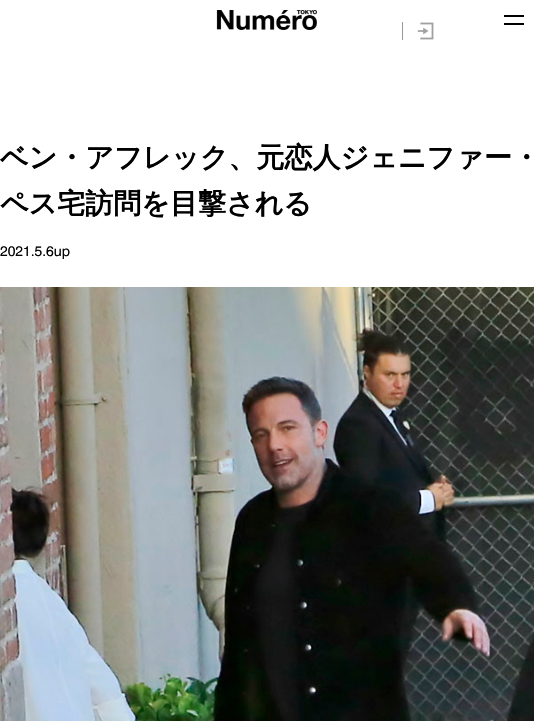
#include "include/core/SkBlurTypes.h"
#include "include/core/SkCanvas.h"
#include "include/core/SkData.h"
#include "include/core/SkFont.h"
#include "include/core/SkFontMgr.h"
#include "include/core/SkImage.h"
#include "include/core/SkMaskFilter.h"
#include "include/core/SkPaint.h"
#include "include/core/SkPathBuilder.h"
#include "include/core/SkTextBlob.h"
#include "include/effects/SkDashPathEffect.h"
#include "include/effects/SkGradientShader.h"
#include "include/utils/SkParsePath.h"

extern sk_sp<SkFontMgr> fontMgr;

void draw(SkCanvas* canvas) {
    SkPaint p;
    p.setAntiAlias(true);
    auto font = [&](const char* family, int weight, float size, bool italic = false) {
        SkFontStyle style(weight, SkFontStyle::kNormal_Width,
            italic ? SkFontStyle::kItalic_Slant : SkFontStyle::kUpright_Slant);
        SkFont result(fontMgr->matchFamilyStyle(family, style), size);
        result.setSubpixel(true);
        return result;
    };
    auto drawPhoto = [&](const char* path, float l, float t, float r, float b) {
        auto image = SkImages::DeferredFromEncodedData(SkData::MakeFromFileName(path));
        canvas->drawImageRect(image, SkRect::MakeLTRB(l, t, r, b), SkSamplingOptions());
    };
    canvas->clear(0xFFFFFFFF);
    drawPhoto("media/1.png", 216, 10, 317, 30);
    {
        const struct { float l, t, r, b; SkColor color; } items[] = {
            {504, 15, 524, 17, 0xFF000000},
            {504, 23, 524, 25, 0xFF000000},
            {402, 22, 403, 40, 0xFF999999},
        };
        for (auto [l, t, r, b, color] : items) {
            p.setColor(color);
            canvas->drawRect(SkRect::MakeLTRB(l, t, r, b), p);
        }
    }
    drawPhoto("media/2.png", 417, 22, 434, 40);
    auto font1 = font("WenQuanYi Zen Hei", 700, 28);
    p.setColor(0xFF000000);
    canvas->drawString("ベン・アフレック、元恋人ジェニファー・", 0, 167, font1, p);
    canvas->drawString("ペス宅訪問を目撃される", 0, 213, font1, p);
    auto font2 = font("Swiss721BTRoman", 400, 14);
    canvas->drawString("2021.5.6up", 0, 256, font2, p);
    drawPhoto("media/3.png", 0, 287, 534, 721);
}
